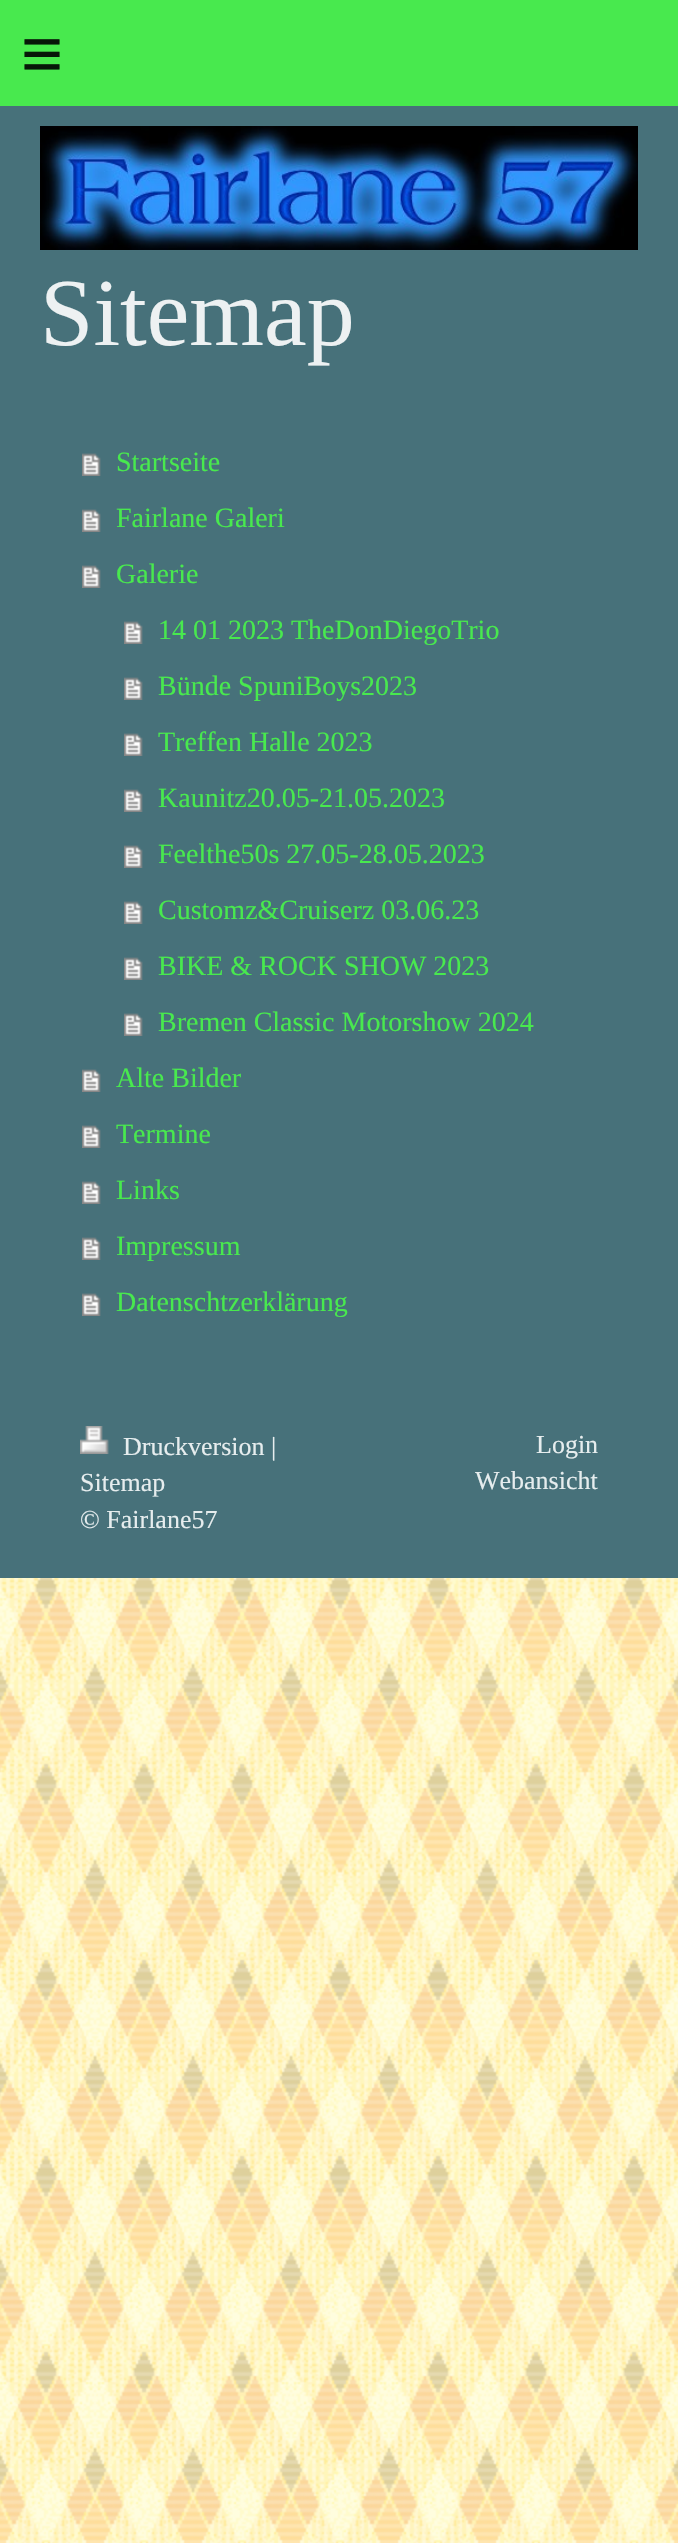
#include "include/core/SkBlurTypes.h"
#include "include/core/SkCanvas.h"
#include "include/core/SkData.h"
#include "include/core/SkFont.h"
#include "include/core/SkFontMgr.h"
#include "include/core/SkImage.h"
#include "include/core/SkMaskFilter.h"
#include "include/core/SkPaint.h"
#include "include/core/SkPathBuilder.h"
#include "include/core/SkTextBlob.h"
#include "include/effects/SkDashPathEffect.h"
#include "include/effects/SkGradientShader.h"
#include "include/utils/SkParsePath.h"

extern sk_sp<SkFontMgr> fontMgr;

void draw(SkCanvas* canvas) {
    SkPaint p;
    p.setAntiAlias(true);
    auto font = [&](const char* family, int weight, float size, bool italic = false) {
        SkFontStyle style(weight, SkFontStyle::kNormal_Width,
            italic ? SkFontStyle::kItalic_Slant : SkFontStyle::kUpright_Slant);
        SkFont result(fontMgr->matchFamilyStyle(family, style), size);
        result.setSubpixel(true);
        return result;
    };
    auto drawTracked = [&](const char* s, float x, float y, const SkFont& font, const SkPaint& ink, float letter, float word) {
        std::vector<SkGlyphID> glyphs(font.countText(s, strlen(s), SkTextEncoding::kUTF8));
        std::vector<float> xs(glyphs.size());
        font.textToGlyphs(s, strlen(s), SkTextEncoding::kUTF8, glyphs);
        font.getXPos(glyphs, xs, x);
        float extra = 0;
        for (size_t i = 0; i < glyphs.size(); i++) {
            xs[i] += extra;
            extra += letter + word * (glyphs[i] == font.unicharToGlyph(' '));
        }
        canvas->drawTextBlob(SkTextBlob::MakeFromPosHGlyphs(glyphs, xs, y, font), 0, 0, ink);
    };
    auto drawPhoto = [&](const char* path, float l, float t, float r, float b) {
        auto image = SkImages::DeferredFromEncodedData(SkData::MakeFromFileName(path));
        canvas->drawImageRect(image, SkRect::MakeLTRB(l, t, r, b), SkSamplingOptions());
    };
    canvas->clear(0xFFFFFFFF);
    drawPhoto("media/1.png", 0, 1578, 678, 2543);
    p.setColor(0xFF48E94E);
    canvas->drawRect(SkRect::MakeLTRB(0, 0, 678, 106), p);
    auto font1 = font("Liberation Sans", 400, 72);
    p.setColor(0xFF071708);
    drawTracked("≡", 21, 78, font1, p, 21, 0);
    p.setColor(0xFF47717A);
    canvas->drawRect(SkRect::MakeLTRB(0, 106, 678, 1578), p);
    drawPhoto("media/2.png", 40, 126, 638, 250);
    auto font2 = font("Liberation Serif", 400, 96);
    p.setColor(0xFFEDF1F2);
    canvas->drawString("Sitemap", 40, 345, font2, p);
    drawPhoto("media/3.png", 82, 453, 101, 476);
    auto font3 = font("Liberation Serif", 400, 28);
    p.setColor(0xFF48E94E);
    canvas->drawString("Startseite", 116, 471, font3, p);
    drawPhoto("media/3.png", 82, 509, 101, 532);
    canvas->drawString("Fairlane Galeri", 116, 527, font3, p);
    drawPhoto("media/3.png", 82, 565, 101, 588);
    canvas->drawString("Galerie", 116, 583, font3, p);
    drawPhoto("media/3.png", 124, 621, 143, 644);
    canvas->drawString("14 01 2023 TheDonDiegoTrio", 158, 639, font3, p);
    drawPhoto("media/3.png", 124, 677, 143, 700);
    canvas->drawString("Bünde SpuniBoys2023", 158, 695, font3, p);
    drawPhoto("media/3.png", 124, 733, 143, 756);
    canvas->drawString("Treffen Halle 2023", 158, 751, font3, p);
    drawPhoto("media/3.png", 124, 789, 143, 812);
    canvas->drawString("Kaunitz20.05-21.05.2023", 158, 807, font3, p);
    drawPhoto("media/3.png", 124, 845, 143, 868);
    canvas->drawString("Feelthe50s 27.05-28.05.2023", 158, 863, font3, p);
    drawPhoto("media/3.png", 124, 901, 143, 924);
    canvas->drawString("Customz&Cruiserz 03.06.23", 158, 919, font3, p);
    drawPhoto("media/3.png", 124, 957, 143, 980);
    canvas->drawString("BIKE & ROCK SHOW 2023", 158, 975, font3, p);
    drawPhoto("media/3.png", 124, 1013, 143, 1036);
    canvas->drawString("Bremen Classic Motorshow 2024", 158, 1031, font3, p);
    drawPhoto("media/3.png", 82, 1069, 101, 1092);
    canvas->drawString("Alte Bilder", 116, 1087, font3, p);
    drawPhoto("media/3.png", 82, 1125, 101, 1148);
    canvas->drawString("Termine", 116, 1143, font3, p);
    drawPhoto("media/3.png", 82, 1181, 101, 1204);
    canvas->drawString("Links", 116, 1199, font3, p);
    drawPhoto("media/3.png", 82, 1237, 101, 1260);
    canvas->drawString("Impressum", 116, 1255, font3, p);
    drawPhoto("media/3.png", 82, 1293, 101, 1316);
    canvas->drawString("Datenschtzerklärung", 116, 1311, font3, p);
    drawPhoto("media/4.png", 80, 1426, 109, 1454);
    auto font4 = font("Liberation Serif", 400, 26);
    p.setColor(0xFFE6EDEE);
    {
        const struct { const char* s; float x, y; } items[] = {
            {"Druckversion |", 123, 1455},
            {"Sitemap", 80, 1491},
            {"© Fairlane57", 80, 1528},
            {"Login", 536, 1453},
            {"Webansicht", 475, 1489},
        };
        for (auto [s, x, y] : items) {
            canvas->drawString(s, x, y, font4, p);
        }
    }
}
